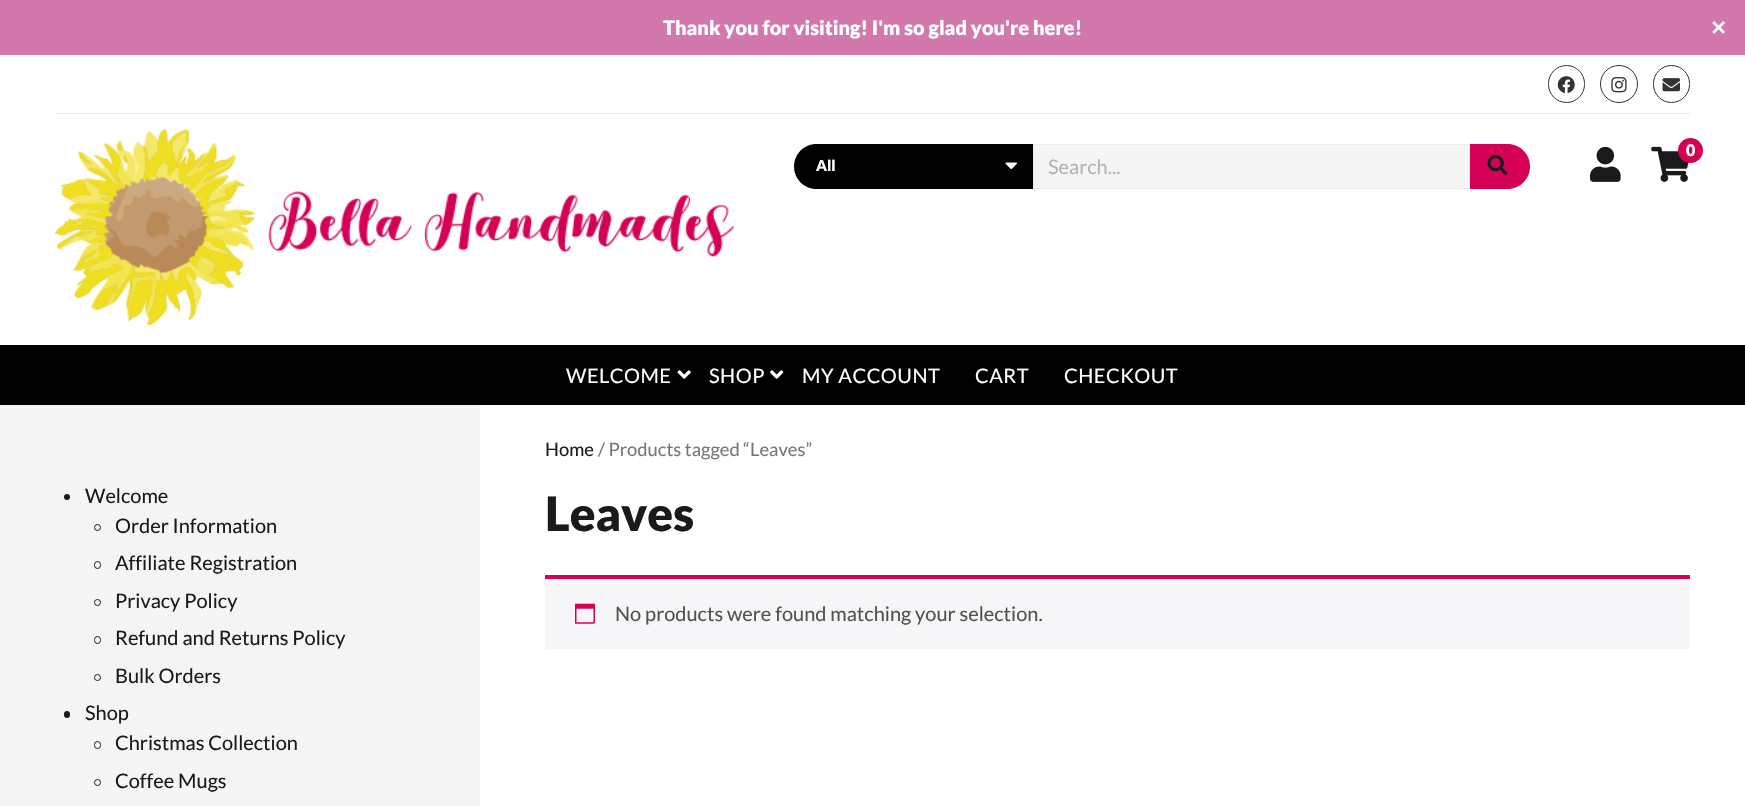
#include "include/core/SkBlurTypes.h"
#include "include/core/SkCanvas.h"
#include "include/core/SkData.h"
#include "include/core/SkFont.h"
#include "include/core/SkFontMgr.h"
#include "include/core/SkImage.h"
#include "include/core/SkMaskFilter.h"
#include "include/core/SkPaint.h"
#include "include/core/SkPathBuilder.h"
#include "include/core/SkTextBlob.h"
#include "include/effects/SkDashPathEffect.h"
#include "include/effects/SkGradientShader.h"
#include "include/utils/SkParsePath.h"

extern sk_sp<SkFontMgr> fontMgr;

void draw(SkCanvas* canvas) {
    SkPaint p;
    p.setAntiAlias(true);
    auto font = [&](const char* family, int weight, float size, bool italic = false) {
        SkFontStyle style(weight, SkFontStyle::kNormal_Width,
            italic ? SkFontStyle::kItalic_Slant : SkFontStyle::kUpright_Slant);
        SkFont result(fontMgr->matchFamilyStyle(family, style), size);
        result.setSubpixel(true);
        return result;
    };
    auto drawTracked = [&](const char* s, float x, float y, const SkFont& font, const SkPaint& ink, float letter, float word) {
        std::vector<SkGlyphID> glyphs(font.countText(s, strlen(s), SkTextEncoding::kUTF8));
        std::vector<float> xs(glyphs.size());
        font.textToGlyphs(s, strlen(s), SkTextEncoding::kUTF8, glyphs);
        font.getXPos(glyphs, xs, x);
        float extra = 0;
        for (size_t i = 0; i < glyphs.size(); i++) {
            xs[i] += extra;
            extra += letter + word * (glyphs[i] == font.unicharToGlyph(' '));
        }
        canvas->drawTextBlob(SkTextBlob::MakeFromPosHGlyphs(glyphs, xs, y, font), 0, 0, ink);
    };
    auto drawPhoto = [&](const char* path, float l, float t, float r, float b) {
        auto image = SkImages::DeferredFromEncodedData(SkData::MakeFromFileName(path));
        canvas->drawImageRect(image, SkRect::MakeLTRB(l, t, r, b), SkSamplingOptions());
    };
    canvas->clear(0xFFFFFFFF);
    p.setColor(0xFFD378AD);
    canvas->drawRect(SkRect::MakeLTRB(0, 0, 1745, 55), p);
    auto font1 = font("Lato", 900, 20);
    p.setColor(0xFFFFFFFF);
    canvas->drawString("Thank you for visiting! I'm so glad you're here!", 663, 35, font1, p);
    auto font2 = font("DejaVu Sans", 700, 20);
    canvas->drawString("✕", 1710, 35, font2, p);
    p.setColor(0xFFEBEBEB);
    canvas->drawRect(SkRect::MakeLTRB(55, 113, 1690, 114), p);
    p.setStyle(SkPaint::kStroke_Style);
    p.setStrokeWidth(1);
    p.setColor(0xFF333333);
    canvas->drawRoundRect(SkRect::MakeLTRB(1548.5f, 65.5f, 1584.5f, 102.5f), 18, 18, p);
    drawPhoto("media/1.png", 1557, 76, 1575, 93);
    canvas->drawCircle(1619, 84, 18.5f, p);
    drawPhoto("media/2.png", 1611, 77, 1627, 93);
    canvas->drawRoundRect(SkRect::MakeLTRB(1653.5f, 65.5f, 1689.5f, 102.5f), 18, 18, p);
    drawPhoto("media/3.png", 1662, 78, 1680, 92);
    drawPhoto("media/4.png", 55, 128, 734, 325);
    p.setStyle(SkPaint::kFill_Style);
    p.setColor(0xFF000000);
    canvas->drawPath(SkPathBuilder().moveTo(816.5f, 144).lineTo(1033, 144).lineTo(1033, 189).lineTo(816.5f, 189).cubicTo(804, 189, 794, 179, 794, 166.5f).cubicTo(794, 154, 804, 144, 816.5f, 144).close().detach(), p);
    auto font3 = font("Lato", 900, 15);
    p.setColor(0xFFFFFFFF);
    canvas->drawString("All", 816, 171, font3, p);
    drawPhoto("media/5.png", 1005, 162, 1017, 170);
    p.setColor(0xFFF5F5F5);
    canvas->drawRect(SkRect::MakeLTRB(1033.5f, 144.5f, 1469.5f, 188.5f), p);
    p.setStyle(SkPaint::kStroke_Style);
    p.setColor(0xFFEBEBEB);
    canvas->drawRect(SkRect::MakeLTRB(1033.5f, 144.5f, 1469.5f, 188.5f), p);
    auto font4 = font("Lato", 400, 20);
    p.setStyle(SkPaint::kFill_Style);
    p.setColor(0xFFB3B3B3);
    canvas->drawString("Search...", 1048, 174, font4, p);
    p.setColor(0xFFD40055);
    canvas->drawPath(SkPathBuilder().moveTo(1470, 144).lineTo(1507.5f, 144).cubicTo(1520, 144, 1530, 154, 1530, 166.5f).cubicTo(1530, 179, 1520, 189, 1507.5f, 189).lineTo(1470, 189).close().detach(), p);
    drawPhoto("media/6.png", 1487, 155, 1508, 175);
    drawPhoto("media/7.png", 1590, 146, 1621, 182);
    drawPhoto("media/8.png", 1651, 146, 1689, 182);
    canvas->drawCircle(1690.5f, 150.5f, 12.5f, p);
    auto font5 = font("Lato", 900, 16);
    p.setColor(0xFFFFFFFF);
    canvas->drawString("0", 1686, 156, font5, p);
    p.setColor(0xFF000000);
    canvas->drawRect(SkRect::MakeLTRB(0, 345, 1745, 405), p);
    p.setColor(0xFFFFFFFF);
    drawTracked("WELCOME", 566, 383, font4, p, 0.5f, 0);
    drawPhoto("media/9.png", 677, 370, 691, 379);
    drawTracked("SHOP", 709, 383, font4, p, 0.5f, 0);
    drawPhoto("media/10.png", 770, 370, 784, 379);
    {
        const struct { const char* s; float x, y; } items[] = {
            {"MY ACCOUNT", 802, 383},
            {"CART", 975, 383},
            {"CHECKOUT", 1064, 383},
        };
        for (auto [s, x, y] : items) {
            drawTracked(s, x, y, font4, p, 0.5f, 0);
        }
    }
    p.setColor(0xFFF5F5F5);
    canvas->drawRect(SkRect::MakeLTRB(0, 405, 480, 806), p);
    p.setColor(0xFF1A1A1A);
    canvas->drawCircle(67, 497, 3, p);
    canvas->drawString("Welcome", 85, 503, font4, p);
    p.setStyle(SkPaint::kStroke_Style);
    canvas->drawCircle(97.5f, 527.5f, 3, p);
    p.setStyle(SkPaint::kFill_Style);
    canvas->drawString("Order Information", 115, 533, font4, p);
    p.setStyle(SkPaint::kStroke_Style);
    canvas->drawRoundRect(SkRect::MakeLTRB(94.5f, 561.5f, 100.5f, 568.5f), 3, 3, p);
    p.setStyle(SkPaint::kFill_Style);
    canvas->drawString("Affiliate Registration", 115, 570, font4, p);
    p.setStyle(SkPaint::kStroke_Style);
    canvas->drawCircle(97.5f, 602.5f, 3, p);
    p.setStyle(SkPaint::kFill_Style);
    canvas->drawString("Privacy Policy", 115, 608, font4, p);
    p.setStyle(SkPaint::kStroke_Style);
    canvas->drawRoundRect(SkRect::MakeLTRB(94.5f, 636.5f, 100.5f, 643.5f), 3, 3, p);
    p.setStyle(SkPaint::kFill_Style);
    canvas->drawString("Refund and Returns Policy", 115, 645, font4, p);
    p.setStyle(SkPaint::kStroke_Style);
    canvas->drawCircle(97.5f, 677.5f, 3, p);
    p.setStyle(SkPaint::kFill_Style);
    canvas->drawString("Bulk Orders", 115, 683, font4, p);
    canvas->drawRoundRect(SkRect::MakeLTRB(64, 711, 70, 718), 3, 3, p);
    canvas->drawString("Shop", 85, 720, font4, p);
    p.setStyle(SkPaint::kStroke_Style);
    canvas->drawRoundRect(SkRect::MakeLTRB(94.5f, 741.5f, 100.5f, 748.5f), 3, 3, p);
    p.setStyle(SkPaint::kFill_Style);
    canvas->drawString("Christmas Collection", 115, 750, font4, p);
    p.setStyle(SkPaint::kStroke_Style);
    canvas->drawCircle(97.5f, 782.5f, 3, p);
    p.setStyle(SkPaint::kFill_Style);
    canvas->drawString("Coffee Mugs", 115, 788, font4, p);
    auto font6 = font("Lato", 400, 18.4f);
    canvas->drawString("Home", 545, 456, font6, p);
    p.setColor(0xFF767676);
    canvas->drawString("/ Products tagged “Leaves”", 598, 456, font6, p);
    auto font7 = font("Lato", 900, 47.5f);
    p.setColor(0xFF1A1A1A);
    canvas->drawString("Leaves", 545, 531, font7, p);
    p.setColor(0xFFF6F5F8);
    canvas->drawRect(SkRect::MakeLTRB(545, 579, 1690, 649), p);
    p.setColor(0xFFD40055);
    canvas->drawRect(SkRect::MakeLTRB(545, 575, 1690, 579), p);
    drawPhoto("media/11.png", 575, 603, 595, 624);
    p.setColor(0xFF515151);
    canvas->drawString("No products were found matching your selection.", 615, 621, font4, p);
}
